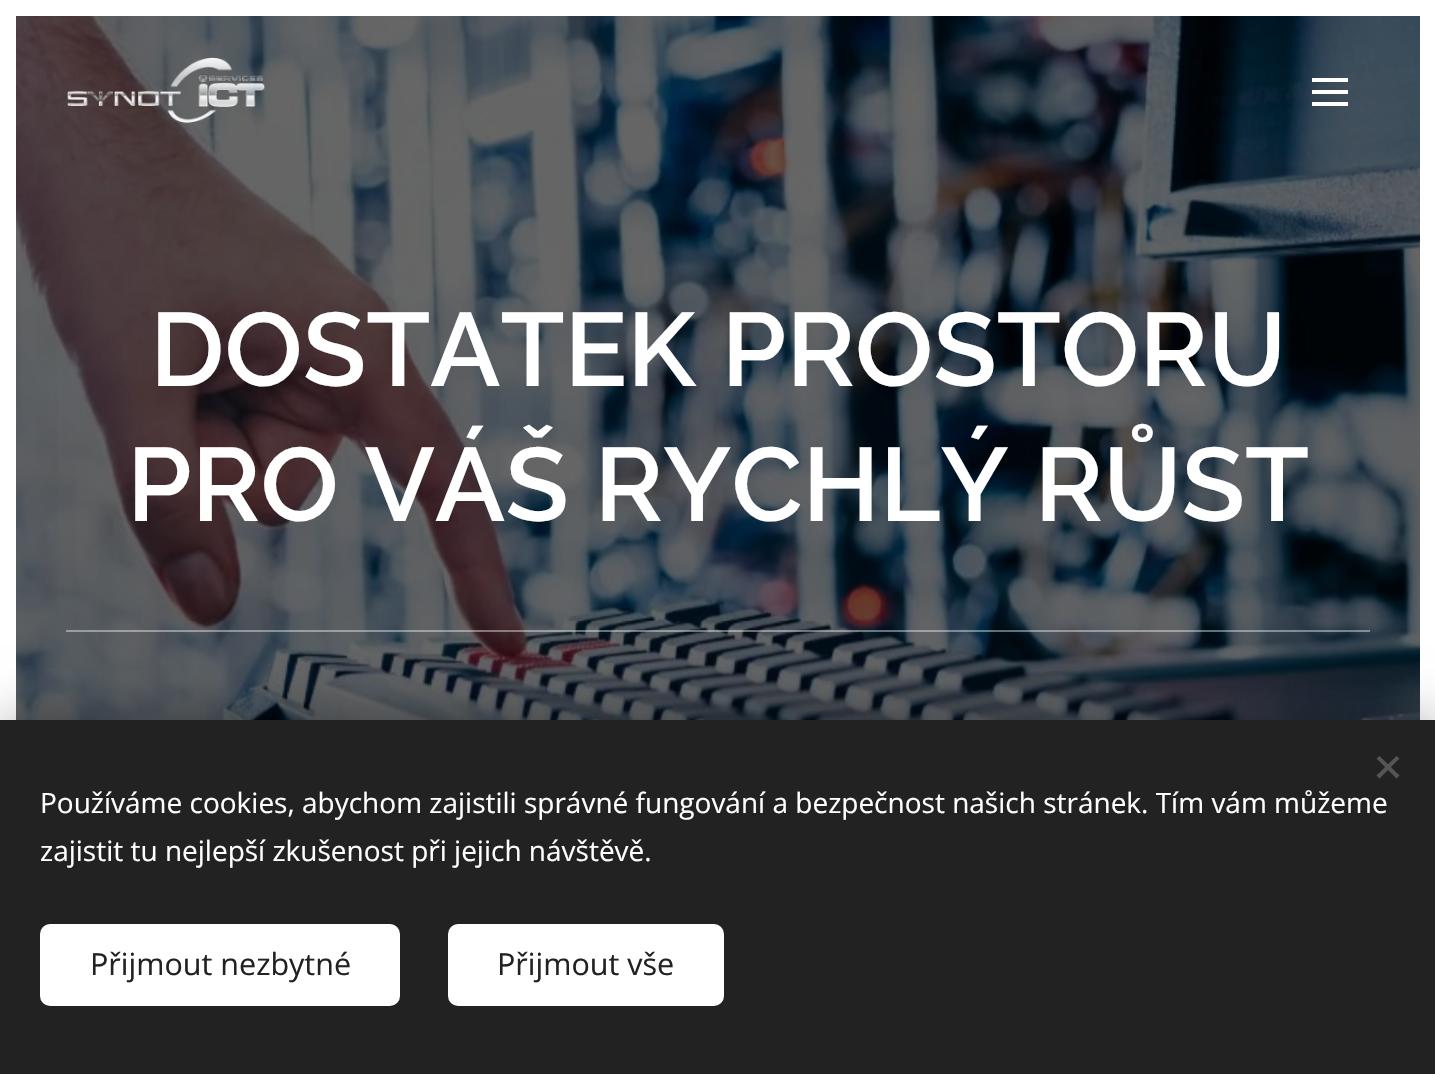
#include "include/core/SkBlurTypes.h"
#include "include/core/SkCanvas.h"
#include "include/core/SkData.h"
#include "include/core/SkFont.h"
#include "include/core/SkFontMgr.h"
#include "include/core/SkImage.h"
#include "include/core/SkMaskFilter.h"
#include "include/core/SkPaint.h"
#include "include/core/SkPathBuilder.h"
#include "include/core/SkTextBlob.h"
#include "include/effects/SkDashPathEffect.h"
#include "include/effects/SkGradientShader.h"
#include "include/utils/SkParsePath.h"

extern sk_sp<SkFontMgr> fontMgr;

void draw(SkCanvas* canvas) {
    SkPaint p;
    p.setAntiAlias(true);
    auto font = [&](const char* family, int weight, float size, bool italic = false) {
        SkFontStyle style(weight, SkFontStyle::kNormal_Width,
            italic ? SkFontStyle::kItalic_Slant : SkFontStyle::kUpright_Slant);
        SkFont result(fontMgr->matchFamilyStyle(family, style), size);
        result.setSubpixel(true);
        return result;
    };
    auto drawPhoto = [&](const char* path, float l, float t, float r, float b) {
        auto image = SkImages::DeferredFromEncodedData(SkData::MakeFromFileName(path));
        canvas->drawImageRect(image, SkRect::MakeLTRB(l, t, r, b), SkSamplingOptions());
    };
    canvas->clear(0xFFFFFFFF);
    drawPhoto("media/2.png", 16, 16, 1420, 720);
    drawPhoto("media/1.png", 67, 57, 265, 123);
    {
        const struct { float l, t, r, b; SkColor color; } items[] = {
            {1312, 90, 1348, 94, 0xFFFFFFFF},
            {1312, 78, 1348, 82, 0xFFFFFFFF},
            {1312, 102, 1348, 106, 0xFFFFFFFF},
        };
        for (auto [l, t, r, b, color] : items) {
            p.setColor(color);
            canvas->drawRect(SkRect::MakeLTRB(l, t, r, b), p);
        }
    }
    auto font1 = font("Raleway", 600, 104);
    canvas->drawString("DOSTATEK PROSTORU", 150, 386, font1, p);
    canvas->drawString("PRO VÁŠ RYCHLÝ RŮST", 127, 521, font1, p);
    p.setColor(0x66FFFFFF);
    canvas->drawRect(SkRect::MakeLTRB(66, 630, 1370, 632), p);
    p.setColor(0x54000000);
    p.setMaskFilter(SkMaskFilter::MakeBlur(kNormal_SkBlurStyle, 25));
    canvas->drawRect(SkRect::MakeLTRB(0, 720, 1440, 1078), p);
    p.setMaskFilter(nullptr);
    p.setColor(0xFF222222);
    canvas->drawRect(SkRect::MakeLTRB(0, 720, 1435, 1074), p);
    p.setColor(0xFF555555);
    canvas->drawPath(SkPathBuilder().moveTo(1376.5f, 775.5f).lineTo(1396.5f, 756).lineTo(1399.5f, 758.5f).lineTo(1379.5f, 778.5f).close().detach(), p);
    canvas->drawPath(SkPathBuilder().moveTo(1379.5f, 756).lineTo(1399.5f, 775.5f).lineTo(1396.5f, 778.5f).lineTo(1376.5f, 758.5f).close().detach(), p);
    auto font2 = font("Open Sans", 400, 28);
    p.setColor(0xFFFFFFFF);
    canvas->drawString("Používáme cookies, abychom zajistili správné fungování a bezpečnost našich stránek. Tím vám můžeme", 40, 813, font2, p);
    canvas->drawString("zajistit tu nejlepší zkušenost při jejich návštěvě.", 40, 861, font2, p);
    canvas->drawRoundRect(SkRect::MakeLTRB(40, 924, 400, 1006), 10, 10, p);
    auto font3 = font("Open Sans", 400, 30.5f);
    p.setColor(0xFF222222);
    canvas->drawString("Přijmout nezbytné", 90, 975, font3, p);
    p.setColor(0xFFFFFFFF);
    canvas->drawRoundRect(SkRect::MakeLTRB(448, 924, 724, 1006), 10, 10, p);
    p.setColor(0xFF222222);
    canvas->drawString("Přijmout vše", 497, 975, font3, p);
}
